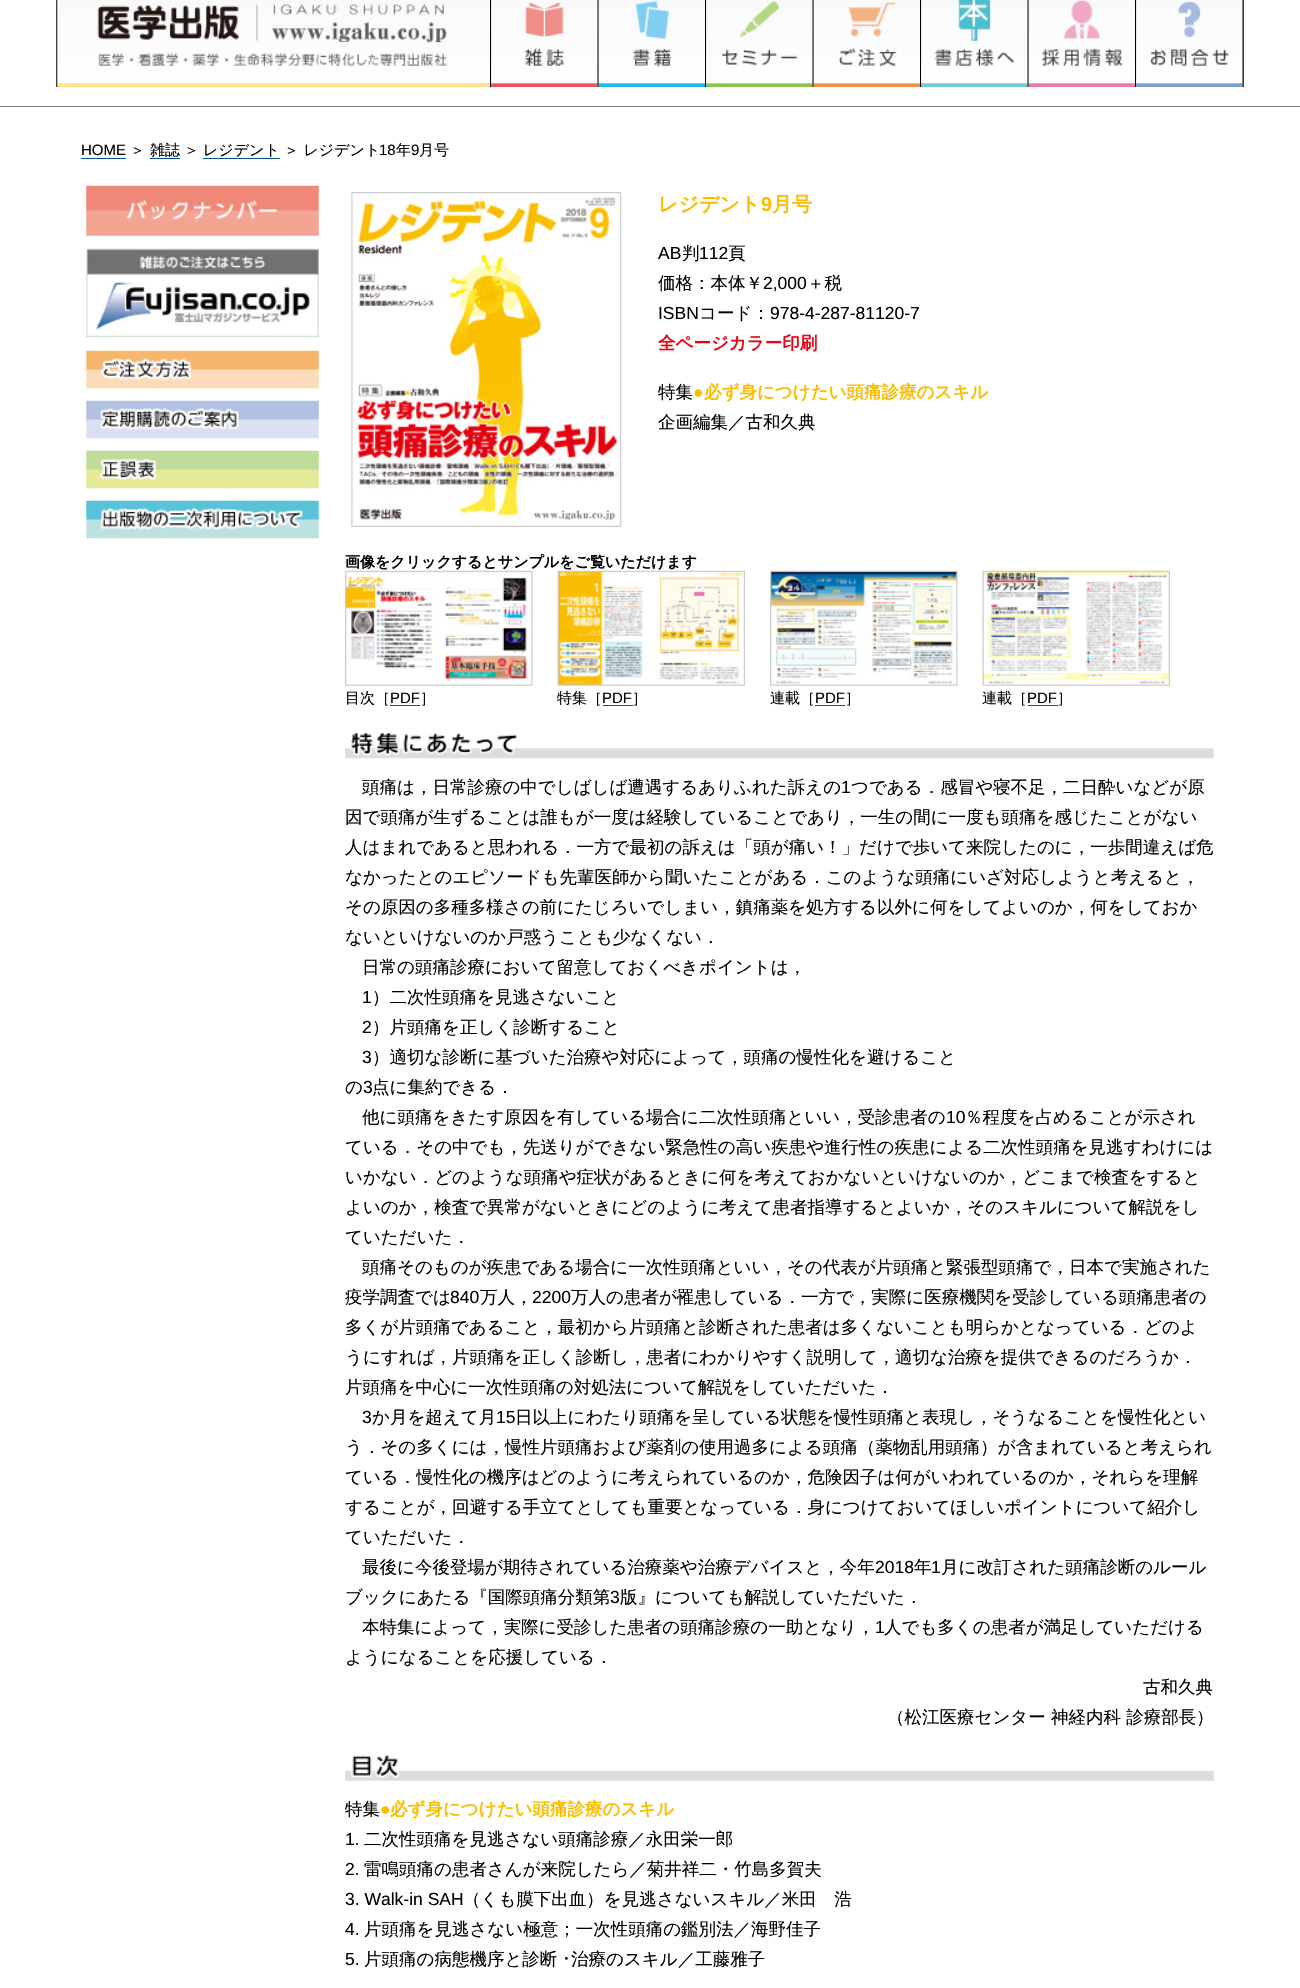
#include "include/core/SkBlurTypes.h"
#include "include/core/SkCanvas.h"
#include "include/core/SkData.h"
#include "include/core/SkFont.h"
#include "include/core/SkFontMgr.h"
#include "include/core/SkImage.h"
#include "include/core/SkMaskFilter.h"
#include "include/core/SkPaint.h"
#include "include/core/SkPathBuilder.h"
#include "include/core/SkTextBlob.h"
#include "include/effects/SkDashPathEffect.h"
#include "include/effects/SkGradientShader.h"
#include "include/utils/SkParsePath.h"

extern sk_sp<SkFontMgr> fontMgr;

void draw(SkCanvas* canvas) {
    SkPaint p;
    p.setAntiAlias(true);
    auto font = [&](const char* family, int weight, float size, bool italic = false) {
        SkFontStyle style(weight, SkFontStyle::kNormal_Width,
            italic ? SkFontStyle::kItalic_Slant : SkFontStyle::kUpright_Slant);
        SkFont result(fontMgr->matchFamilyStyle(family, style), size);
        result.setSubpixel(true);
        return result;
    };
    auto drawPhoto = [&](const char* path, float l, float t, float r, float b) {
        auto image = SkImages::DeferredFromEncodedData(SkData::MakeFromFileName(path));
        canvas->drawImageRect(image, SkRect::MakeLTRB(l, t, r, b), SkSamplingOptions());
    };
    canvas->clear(0xFFFFFFFF);
    drawPhoto("media/1.png", 56, 0, 58, 87);
    drawPhoto("media/2.png", 57, 0, 490, 87);
    drawPhoto("media/3.png", 490, 0, 492, 87);
    drawPhoto("media/4.png", 491, 0, 598, 87);
    drawPhoto("media/5.png", 597, 0, 599, 87);
    drawPhoto("media/6.png", 598, 0, 705, 87);
    drawPhoto("media/3.png", 705, 0, 707, 87);
    drawPhoto("media/7.png", 706, 0, 813, 87);
    drawPhoto("media/8.png", 812, 0, 814, 87);
    drawPhoto("media/9.png", 813, 0, 920, 87);
    drawPhoto("media/3.png", 920, 0, 922, 87);
    drawPhoto("media/10.png", 921, 0, 1028, 87);
    drawPhoto("media/11.png", 1027, 0, 1029, 87);
    drawPhoto("media/12.png", 1028, 0, 1135, 87);
    drawPhoto("media/3.png", 1135, 0, 1137, 87);
    drawPhoto("media/13.png", 1136, 0, 1243, 87);
    drawPhoto("media/14.png", 1242, 0, 1244, 87);
    p.setColor(0xFF808080);
    canvas->drawRect(SkRect::MakeLTRB(0, 106, 1300, 107), p);
    auto font1 = font("Liberation Sans", 400, 15);
    p.setColor(0xFF000000);
    canvas->drawString("HOME", 81, 155, font1, p);
    p.setColor(0xFF005396);
    canvas->drawRect(SkRect::MakeLTRB(81, 158, 126, 159), p);
    auto font2 = font("WenQuanYi Zen Hei", 500, 15);
    p.setColor(0xFF000000);
    canvas->drawString("＞", 130, 155, font2, p);
    canvas->drawString("雑誌", 150, 155, font2, p);
    p.setColor(0xFF005396);
    canvas->drawRect(SkRect::MakeLTRB(150, 158, 180, 159), p);
    p.setColor(0xFF000000);
    canvas->drawString("＞", 184, 155, font2, p);
    canvas->drawString("レジデント", 203, 155, font2, p);
    p.setColor(0xFF005396);
    canvas->drawRect(SkRect::MakeLTRB(203, 158, 280, 159), p);
    p.setColor(0xFF000000);
    canvas->drawString("＞ レジデント", 284, 155, font2, p);
    canvas->drawString("18", 379, 155, font1, p);
    canvas->drawString("年", 396, 155, font2, p);
    canvas->drawString("9", 411, 155, font1, p);
    canvas->drawString("月号", 419, 155, font2, p);
    drawPhoto("media/15.png", 86, 185, 319, 236);
    drawPhoto("media/16.png", 86, 248, 319, 338);
    drawPhoto("media/17.png", 86, 350, 319, 389);
    drawPhoto("media/18.png", 86, 400, 319, 439);
    drawPhoto("media/19.png", 86, 450, 319, 489);
    drawPhoto("media/20.png", 86, 500, 319, 539);
    drawPhoto("media/21.png", 351, 192, 622, 527);
    auto font3 = font("WenQuanYi Zen Hei", 700, 20);
    p.setColor(0xFFFABD00);
    canvas->drawString("レジデント", 658, 211, font3, p);
    auto font4 = font("Liberation Sans", 700, 20);
    canvas->drawString("9", 761, 211, font4, p);
    canvas->drawString("月号", 772, 211, font3, p);
    auto font5 = font("Liberation Sans", 400, 17.5f);
    p.setColor(0xFF000000);
    canvas->drawString("AB", 658, 259, font5, p);
    auto font6 = font("WenQuanYi Zen Hei", 500, 17.5f);
    canvas->drawString("判", 682, 259, font6, p);
    canvas->drawString("112", 699, 259, font5, p);
    canvas->drawString("頁", 728, 259, font6, p);
    canvas->drawString("価格：本体￥", 658, 289, font6, p);
    canvas->drawString("2,000", 763, 289, font5, p);
    canvas->drawString("＋税", 807, 289, font6, p);
    canvas->drawString("ISBN", 658, 319, font5, p);
    canvas->drawString("コード：", 699, 319, font6, p);
    canvas->drawString("978-4-287-81120-7", 770, 319, font5, p);
    auto font7 = font("WenQuanYi Zen Hei", 700, 17.5f);
    p.setColor(0xFFE70618);
    canvas->drawString("全ページカラー印刷", 658, 349, font7, p);
    p.setColor(0xFF000000);
    canvas->drawString("特集", 658, 398, font6, p);
    p.setColor(0xFFFABD00);
    canvas->drawString("●", 693, 398, font5, p);
    canvas->drawString("必ず身につけたい頭痛診療のスキル", 704, 398, font7, p);
    p.setColor(0xFF000000);
    canvas->drawString("企画編集／古和久典", 658, 428, font6, p);
    auto font8 = font("WenQuanYi Zen Hei", 700, 15);
    canvas->drawString("画像をクリックするとサンプルをご覧いただけます", 345, 567, font8, p);
    drawPhoto("media/22.png", 345, 570, 533, 686);
    drawPhoto("media/23.png", 557, 570, 745, 686);
    drawPhoto("media/24.png", 770, 570, 958, 686);
    drawPhoto("media/25.png", 982, 570, 1170, 686);
    canvas->drawString("目次［", 345, 703, font2, p);
    canvas->drawString("PDF", 390, 703, font1, p);
    p.setColor(0xFF005396);
    canvas->drawRect(SkRect::MakeLTRB(390, 705, 420, 706), p);
    p.setColor(0xFF000000);
    canvas->drawString("］", 420, 703, font2, p);
    canvas->drawString("特集［", 557, 703, font2, p);
    canvas->drawString("PDF", 602, 703, font1, p);
    p.setColor(0xFF005396);
    canvas->drawRect(SkRect::MakeLTRB(603, 705, 633, 706), p);
    p.setColor(0xFF000000);
    canvas->drawString("］", 632, 703, font2, p);
    canvas->drawString("連載［", 770, 703, font2, p);
    canvas->drawString("PDF", 815, 703, font1, p);
    p.setColor(0xFF005396);
    canvas->drawRect(SkRect::MakeLTRB(815, 705, 845, 706), p);
    p.setColor(0xFF000000);
    canvas->drawString("］", 845, 703, font2, p);
    canvas->drawString("連載［", 982, 703, font2, p);
    canvas->drawString("PDF", 1027, 703, font1, p);
    p.setColor(0xFF005396);
    canvas->drawRect(SkRect::MakeLTRB(1028, 705, 1058, 706), p);
    p.setColor(0xFF000000);
    canvas->drawString("］", 1057, 703, font2, p);
    drawPhoto("media/26.png", 345, 733, 1214, 759);
    canvas->drawString("頭痛は，日常診療の中でしばしば遭遇するありふれた訴えの", 362, 793, font6, p);
    canvas->drawString("1", 841, 793, font5, p);
    {
        const struct { const char* s; float x, y; } items[] = {
            {"つである．感冒や寝不足，二日酔いなどが原", 851, 793},
            {"因で頭痛が生ずることは誰もが一度は経験していることであり，一生の間に一度も頭痛を感じたことがない", 345, 823},
            {"人はまれであると思われる．一方で最初の訴えは「頭が痛い！」だけで歩いて来院したのに，一歩間違えば危", 345, 853},
            {"なかったとのエピソードも先輩医師から聞いたことがある．このような頭痛にいざ対応しようと考えると，", 345, 883},
            {"その原因の多種多様さの前にたじろいでしまい，鎮痛薬を処方する以外に何をしてよいのか，何をしておか", 345, 913},
            {"ないといけないのか戸惑うことも少なくない．", 345, 943},
            {"日常の頭痛診療において留意しておくべきポイントは，", 362, 973},
        };
        for (auto [s, x, y] : items) {
            canvas->drawString(s, x, y, font6, p);
        }
    }
    canvas->drawString("1", 362, 1003, font5, p);
    canvas->drawString("）二次性頭痛を見逃さないこと", 372, 1003, font6, p);
    canvas->drawString("2", 362, 1033, font5, p);
    canvas->drawString("）片頭痛を正しく診断すること", 372, 1033, font6, p);
    canvas->drawString("3", 362, 1063, font5, p);
    canvas->drawString("）適切な診断に基づいた治療や対応によって，頭痛の慢性化を避けること", 372, 1063, font6, p);
    canvas->drawString("の", 345, 1093, font6, p);
    canvas->drawString("3", 363, 1093, font5, p);
    canvas->drawString("点に集約できる．", 372, 1093, font6, p);
    canvas->drawString("他に頭痛をきたす原因を有している場合に二次性頭痛といい，受診患者の", 362, 1123, font6, p);
    canvas->drawString("10", 946, 1123, font5, p);
    {
        const struct { const char* s; float x, y; } items[] = {
            {"％程度を占めることが示され", 965, 1123},
            {"ている．その中でも，先送りができない緊急性の高い疾患や進行性の疾患による二次性頭痛を見逃すわけには", 345, 1153},
            {"いかない．どのような頭痛や症状があるときに何を考えておかないといけないのか，どこまで検査をすると", 345, 1183},
            {"よいのか，検査で異常がないときにどのように考えて患者指導するとよいか，そのスキルについて解説をし", 345, 1213},
            {"ていただいた．", 345, 1243},
            {"頭痛そのものが疾患である場合に一次性頭痛といい，その代表が片頭痛と緊張型頭痛で，日本で実施された", 362, 1273},
            {"疫学調査では", 345, 1303},
        };
        for (auto [s, x, y] : items) {
            canvas->drawString(s, x, y, font6, p);
        }
    }
    canvas->drawString("840", 450, 1303, font5, p);
    canvas->drawString("万人，", 480, 1303, font6, p);
    canvas->drawString("2200", 532, 1303, font5, p);
    {
        const struct { const char* s; float x, y; } items[] = {
            {"万人の患者が罹患している．一方で，実際に医療機関を受診している頭痛患者の", 571, 1303},
            {"多くが片頭痛であること，最初から片頭痛と診断された患者は多くないことも明らかとなっている．どのよ", 345, 1333},
            {"うにすれば，片頭痛を正しく診断し，患者にわかりやすく説明して，適切な治療を提供できるのだろうか．", 345, 1363},
            {"片頭痛を中心に一次性頭痛の対処法について解説をしていただいた．", 345, 1393},
        };
        for (auto [s, x, y] : items) {
            canvas->drawString(s, x, y, font6, p);
        }
    }
    canvas->drawString("3", 362, 1423, font5, p);
    canvas->drawString("か月を超えて月", 372, 1423, font6, p);
    canvas->drawString("15", 496, 1423, font5, p);
    {
        const struct { const char* s; float x, y; } items[] = {
            {"日以上にわたり頭痛を呈している状態を慢性頭痛と表現し，そうなることを慢性化とい", 515, 1423},
            {"う．その多くには，慢性片頭痛および薬剤の使用過多による頭痛（薬物乱用頭痛）が含まれていると考えられ", 345, 1453},
            {"ている．慢性化の機序はどのように考えられているのか，危険因子は何がいわれているのか，それらを理解", 345, 1483},
            {"することが，回避する手立てとしても重要となっている．身につけておいてほしいポイントについて紹介し", 345, 1513},
            {"ていただいた．", 345, 1543},
            {"最後に今後登場が期待されている治療薬や治療デバイスと，今年", 362, 1573},
        };
        for (auto [s, x, y] : items) {
            canvas->drawString(s, x, y, font6, p);
        }
    }
    canvas->drawString("2018", 875, 1573, font5, p);
    canvas->drawString("年", 914, 1573, font6, p);
    canvas->drawString("1", 931, 1573, font5, p);
    canvas->drawString("月に改訂された頭痛診断のルール", 941, 1573, font6, p);
    canvas->drawString("ブックにあたる『国際頭痛分類第", 345, 1603, font6, p);
    canvas->drawString("3", 610, 1603, font5, p);
    canvas->drawString("版』についても解説していただいた．", 620, 1603, font6, p);
    canvas->drawString("本特集によって，実際に受診した患者の頭痛診療の一助となり，", 362, 1633, font6, p);
    canvas->drawString("1", 875, 1633, font5, p);
    {
        const struct { const char* s; float x, y; } items[] = {
            {"人でも多くの患者が満足していただける", 884, 1633},
            {"ようになることを応援している．", 345, 1663},
            {"古和久典", 1143, 1693},
            {"（松江医療センター 神経内科 診療部長）", 887, 1723},
        };
        for (auto [s, x, y] : items) {
            canvas->drawString(s, x, y, font6, p);
        }
    }
    drawPhoto("media/27.png", 345, 1755, 1214, 1781);
    canvas->drawString("特集", 345, 1815, font6, p);
    p.setColor(0xFFFABD00);
    canvas->drawString("●", 380, 1815, font5, p);
    canvas->drawString("必ず身につけたい頭痛診療のスキル", 390, 1815, font7, p);
    p.setColor(0xFF000000);
    canvas->drawString("1.", 345, 1845, font5, p);
    canvas->drawString("二次性頭痛を見逃さない頭痛診療／永田栄一郎", 364, 1845, font6, p);
    canvas->drawString("2.", 345, 1875, font5, p);
    canvas->drawString("雷鳴頭痛の患者さんが来院したら／菊井祥二・竹島多賀夫", 364, 1875, font6, p);
    canvas->drawString("3. Walk-in SAH", 345, 1905, font5, p);
    canvas->drawString("（くも膜下出血）を見逃さないスキル／米田　浩", 463, 1905, font6, p);
    canvas->drawString("4.", 345, 1935, font5, p);
    canvas->drawString("片頭痛を見逃さない極意；一次性頭痛の鑑別法／海野佳子", 364, 1935, font6, p);
    canvas->drawString("5.", 345, 1965, font5, p);
    canvas->drawString("片頭痛の病態機序と診断", 364, 1965, font6, p);
    auto font9 = font("IPAPGothic", 400, 17.5f);
    canvas->drawString("･", 562, 1965, font9, p);
    canvas->drawString("治療のスキル／工藤雅子", 571, 1965, font6, p);
}
